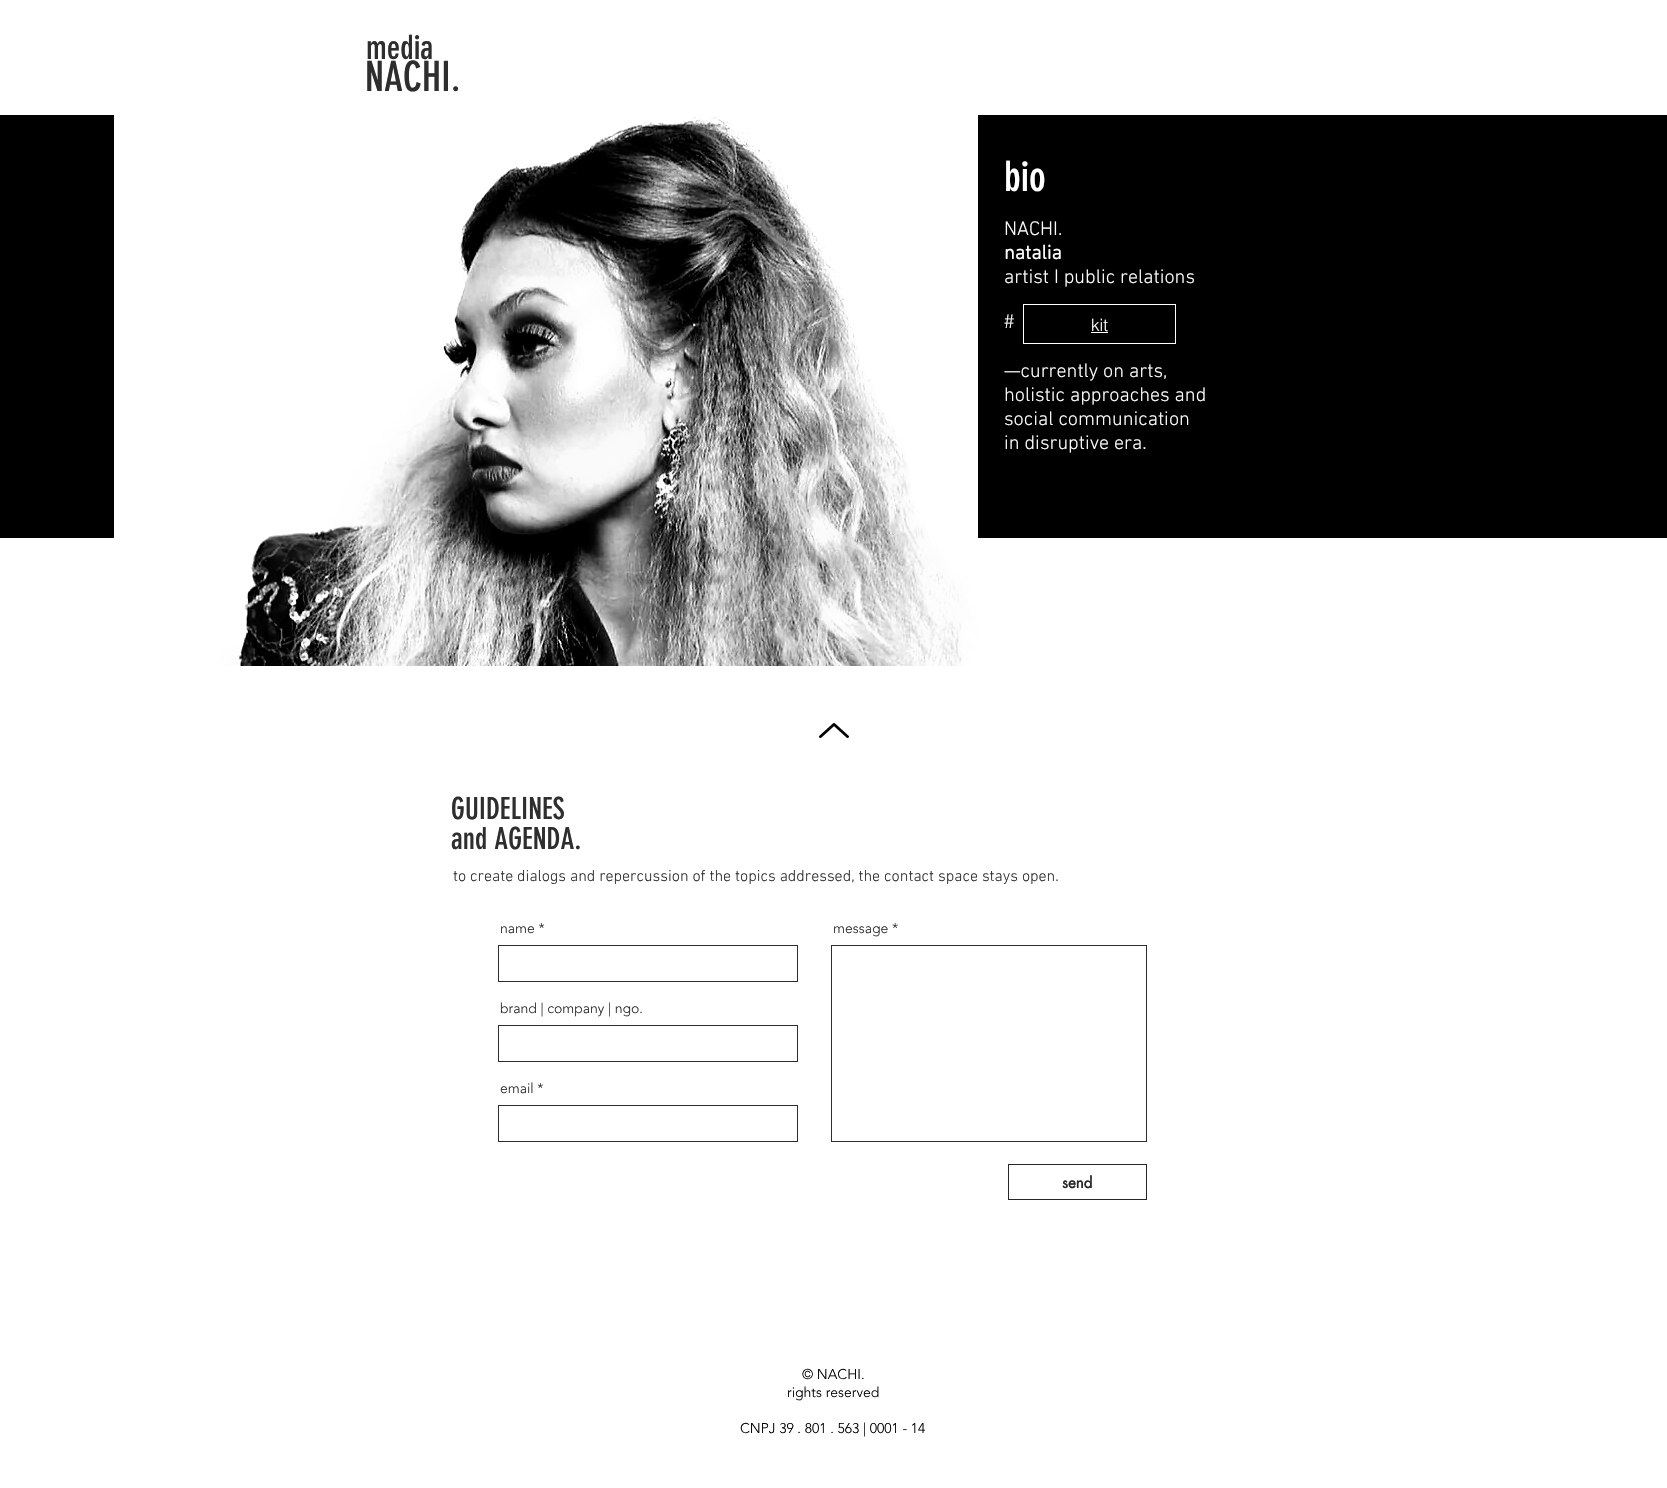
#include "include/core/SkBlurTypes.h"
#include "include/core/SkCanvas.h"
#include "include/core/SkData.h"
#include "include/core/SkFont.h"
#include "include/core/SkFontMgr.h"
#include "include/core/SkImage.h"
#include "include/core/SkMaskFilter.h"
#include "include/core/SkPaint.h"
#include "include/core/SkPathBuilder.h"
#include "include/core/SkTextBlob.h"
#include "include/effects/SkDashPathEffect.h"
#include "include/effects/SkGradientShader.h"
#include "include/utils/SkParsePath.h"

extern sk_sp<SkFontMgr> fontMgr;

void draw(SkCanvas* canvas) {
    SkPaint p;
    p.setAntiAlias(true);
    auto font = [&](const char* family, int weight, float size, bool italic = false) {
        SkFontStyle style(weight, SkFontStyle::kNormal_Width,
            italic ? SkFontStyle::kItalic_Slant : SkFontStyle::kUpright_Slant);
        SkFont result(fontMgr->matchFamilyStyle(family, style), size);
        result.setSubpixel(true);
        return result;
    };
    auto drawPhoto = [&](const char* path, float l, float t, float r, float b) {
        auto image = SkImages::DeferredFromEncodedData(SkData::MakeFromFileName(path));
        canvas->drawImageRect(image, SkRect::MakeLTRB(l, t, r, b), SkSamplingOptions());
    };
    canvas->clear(0xFFFFFFFF);
    auto font1 = font("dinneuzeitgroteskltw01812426", 400, 33);
    p.setColor(0xFF2F2E2E);
    canvas->drawString("media", 366, 59, font1, p);
    auto font2 = font("dinneuzeitgroteskltw01812426", 400, 41);
    canvas->drawString("NACHI.", 365, 91, font2, p);
    p.setColor(0xFF000000);
    canvas->drawRect(SkRect::MakeLTRB(0, 115, 1667, 538), p);
    drawPhoto("media/1.png", 114, 115, 978, 666);
    p.setColor(0xFFFFFFFF);
    canvas->drawString("bio", 1004, 191, font2, p);
    auto font3 = font("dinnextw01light", 300, 20);
    canvas->drawString("NACHI.", 1004, 235, font3, p);
    auto font4 = font("dinnextw01light", 700, 20);
    canvas->drawString("natalia", 1004, 259, font4, p);
    {
        const struct { const char* s; float x, y; } items[] = {
            {"artist I public relations", 1004, 283},
            {"#", 1004, 328},
            {"—currently on arts,", 1004, 377},
            {"holistic approaches and", 1004, 401},
            {"social communication", 1004, 425},
            {"in disruptive era.", 1004, 449},
        };
        for (auto [s, x, y] : items) {
            canvas->drawString(s, x, y, font3, p);
        }
    }
    p.setStyle(SkPaint::kStroke_Style);
    p.setStrokeWidth(1);
    canvas->drawRect(SkRect::MakeLTRB(1023.5f, 304.5f, 1175.5f, 343.5f), p);
    auto font5 = font("helvetica", 300, 17);
    p.setStyle(SkPaint::kFill_Style);
    canvas->drawString("kit", 1091, 331, font5, p);
    canvas->drawRect(SkRect::MakeLTRB(1091, 332, 1108, 333), p);
    drawPhoto("media/2.png", 819, 723, 849, 738);
    auto font6 = font("dinneuzeitgroteskltw01812426", 400, 30);
    p.setColor(0xFF2F2E2E);
    canvas->drawString("GUIDELINES", 451, 819, font6, p);
    canvas->drawString("and AGENDA.", 451, 849, font6, p);
    auto font7 = font("dinnextw01light", 300, 16);
    canvas->drawString("to create dialogs and repercussion of the topics addressed, the contact space stays open.", 453, 881, font7, p);
    auto font8 = font("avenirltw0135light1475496", 300, 14);
    canvas->drawString("name *", 500, 933, font8, p);
    p.setStyle(SkPaint::kStroke_Style);
    canvas->drawRect(SkRect::MakeLTRB(498.5f, 945.5f, 797.5f, 981.5f), p);
    p.setStyle(SkPaint::kFill_Style);
    canvas->drawString("message *", 833, 933, font8, p);
    p.setStyle(SkPaint::kStroke_Style);
    canvas->drawRect(SkRect::MakeLTRB(831.5f, 945.5f, 1146.5f, 1141.5f), p);
    p.setStyle(SkPaint::kFill_Style);
    canvas->drawString("brand | company | ngo.", 500, 1013, font8, p);
    p.setStyle(SkPaint::kStroke_Style);
    canvas->drawRect(SkRect::MakeLTRB(498.5f, 1025.5f, 797.5f, 1061.5f), p);
    p.setStyle(SkPaint::kFill_Style);
    canvas->drawString("email *", 500, 1093, font8, p);
    p.setStyle(SkPaint::kStroke_Style);
    canvas->drawRect(SkRect::MakeLTRB(498.5f, 1105.5f, 797.5f, 1141.5f), p);
    p.setColor(0xFF282626);
    canvas->drawRect(SkRect::MakeLTRB(1008.5f, 1164.5f, 1146.5f, 1199.5f), p);
    auto font9 = font("futura", 700, 15);
    p.setStyle(SkPaint::kFill_Style);
    canvas->drawString("send", 1062, 1188, font9, p);
    p.setColor(0xFF000000);
    {
        const struct { const char* s; float x, y; } items[] = {
            {"© NACHI.", 802, 1379},
            {"rights reserved", 787, 1397},
            {"CNPJ 39 . 801 . 563 | 0001 - 14", 740, 1433},
        };
        for (auto [s, x, y] : items) {
            canvas->drawString(s, x, y, font8, p);
        }
    }
}
